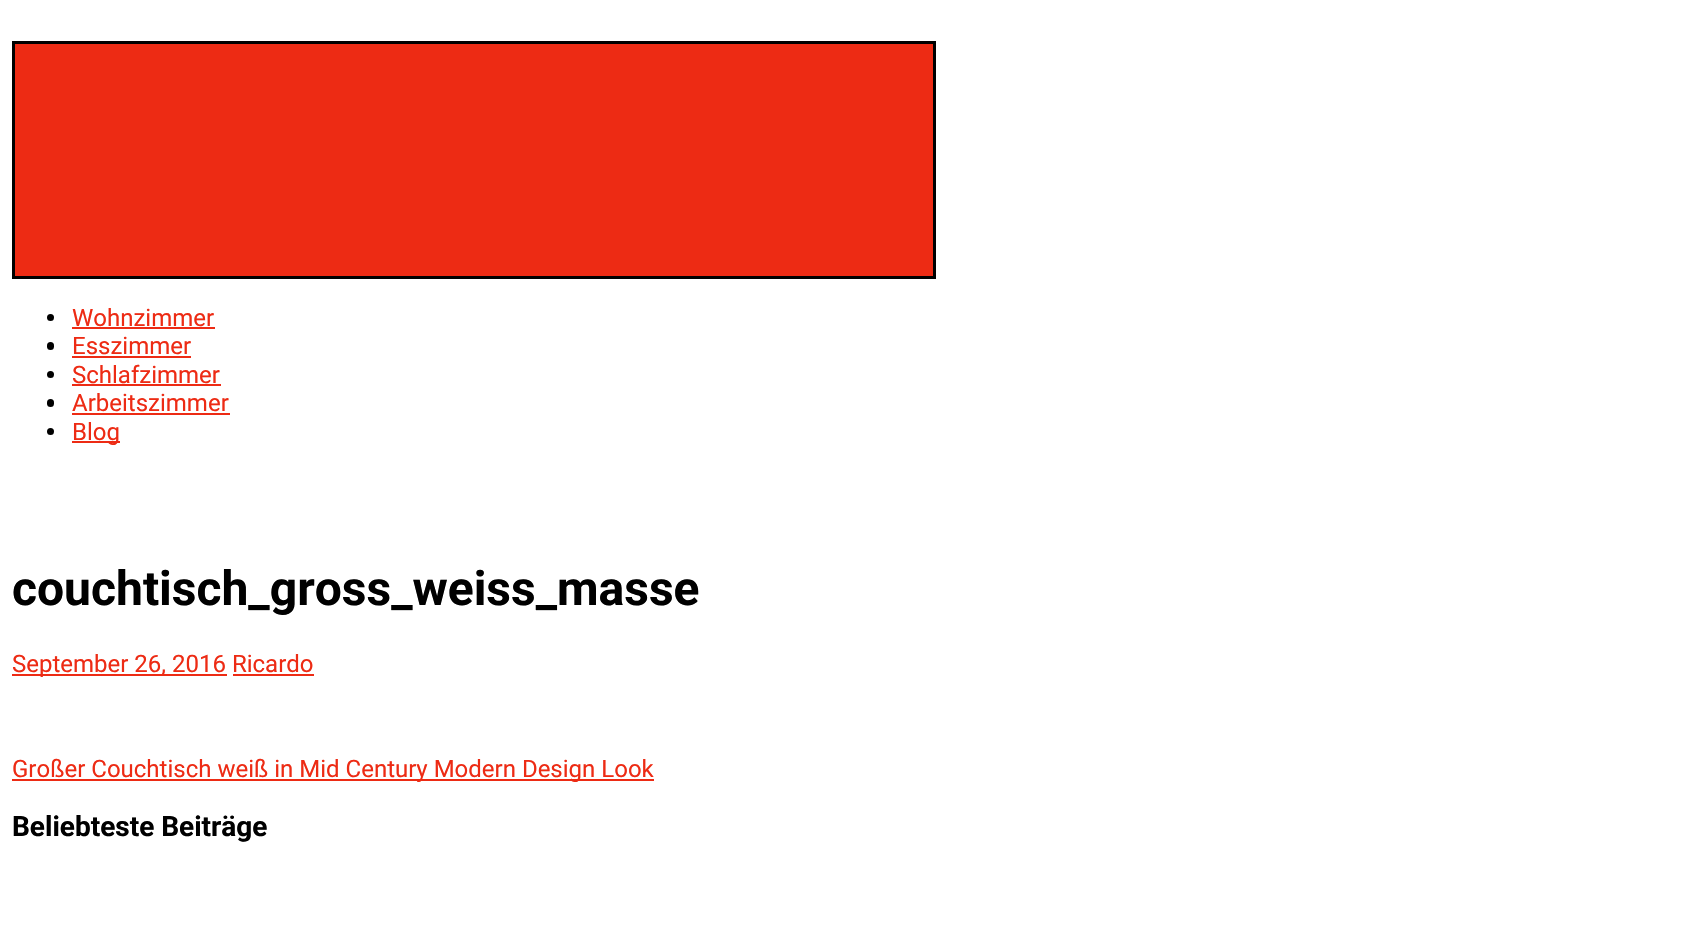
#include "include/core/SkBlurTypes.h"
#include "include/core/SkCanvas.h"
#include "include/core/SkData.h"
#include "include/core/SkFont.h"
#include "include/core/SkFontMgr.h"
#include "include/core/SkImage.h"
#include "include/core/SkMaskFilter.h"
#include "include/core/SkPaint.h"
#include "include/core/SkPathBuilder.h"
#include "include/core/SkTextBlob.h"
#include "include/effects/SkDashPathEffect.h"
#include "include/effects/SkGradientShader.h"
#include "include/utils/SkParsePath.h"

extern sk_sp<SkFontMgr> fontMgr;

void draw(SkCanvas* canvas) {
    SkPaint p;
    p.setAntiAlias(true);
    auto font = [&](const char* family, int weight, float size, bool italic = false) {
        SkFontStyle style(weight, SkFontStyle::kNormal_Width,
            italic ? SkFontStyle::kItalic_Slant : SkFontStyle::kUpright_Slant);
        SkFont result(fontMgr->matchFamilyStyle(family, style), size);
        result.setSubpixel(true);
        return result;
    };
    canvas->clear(0xFFFFFFFF);
    p.setColor(0xFFED2B14);
    canvas->drawRect(SkRect::MakeLTRB(13.5f, 42.5f, 934.5f, 277.5f), p);
    p.setStyle(SkPaint::kStroke_Style);
    p.setStrokeWidth(3);
    p.setColor(0xFF000000);
    canvas->drawRect(SkRect::MakeLTRB(13.5f, 42.5f, 934.5f, 277.5f), p);
    p.setStyle(SkPaint::kFill_Style);
    canvas->drawCircle(50.5f, 317.5f, 3.5f, p);
    auto font1 = font("Roboto", 400, 24);
    p.setColor(0xFFED2B14);
    canvas->drawString("Wohnzimmer", 72, 326, font1, p);
    canvas->drawRect(SkRect::MakeLTRB(72, 327, 215, 329), p);
    p.setColor(0xFF000000);
    canvas->drawRoundRect(SkRect::MakeLTRB(47, 342, 54, 350), 3.5f, 3.5f, p);
    p.setColor(0xFFED2B14);
    canvas->drawString("Esszimmer", 72, 354, font1, p);
    canvas->drawRect(SkRect::MakeLTRB(72, 356, 191, 358), p);
    p.setColor(0xFF000000);
    canvas->drawCircle(50.5f, 374.5f, 3.5f, p);
    p.setColor(0xFFED2B14);
    canvas->drawString("Schlafzimmer", 72, 383, font1, p);
    canvas->drawRect(SkRect::MakeLTRB(72, 384, 221, 386), p);
    p.setColor(0xFF000000);
    canvas->drawRoundRect(SkRect::MakeLTRB(47, 399, 54, 407), 3.5f, 3.5f, p);
    p.setColor(0xFFED2B14);
    canvas->drawString("Arbeitszimmer", 72, 411, font1, p);
    canvas->drawRect(SkRect::MakeLTRB(72, 413, 230, 415), p);
    p.setColor(0xFF000000);
    canvas->drawCircle(50.5f, 431.5f, 3.5f, p);
    p.setColor(0xFFED2B14);
    canvas->drawRect(SkRect::MakeLTRB(72, 441, 120, 443), p);
    canvas->drawString("Blog", 72, 440, font1, p);
    auto font2 = font("Roboto", 700, 48);
    p.setColor(0xFF000000);
    canvas->drawString("couchtisch_gross_weiss_masse", 12, 605, font2, p);
    p.setColor(0xFFED2B14);
    canvas->drawRect(SkRect::MakeLTRB(12, 674, 227, 676), p);
    canvas->drawString("September 26, 2016 Ricardo", 12, 672, font1, p);
    canvas->drawRect(SkRect::MakeLTRB(233, 674, 314, 676), p);
    canvas->drawRect(SkRect::MakeLTRB(12, 779, 654, 781), p);
    canvas->drawString("Großer Couchtisch weiß in Mid Century Modern Design Look", 12, 777, font1, p);
    auto font3 = font("Roboto", 700, 28);
    p.setColor(0xFF000000);
    canvas->drawString("Beliebteste Beiträge", 12, 836, font3, p);
}
